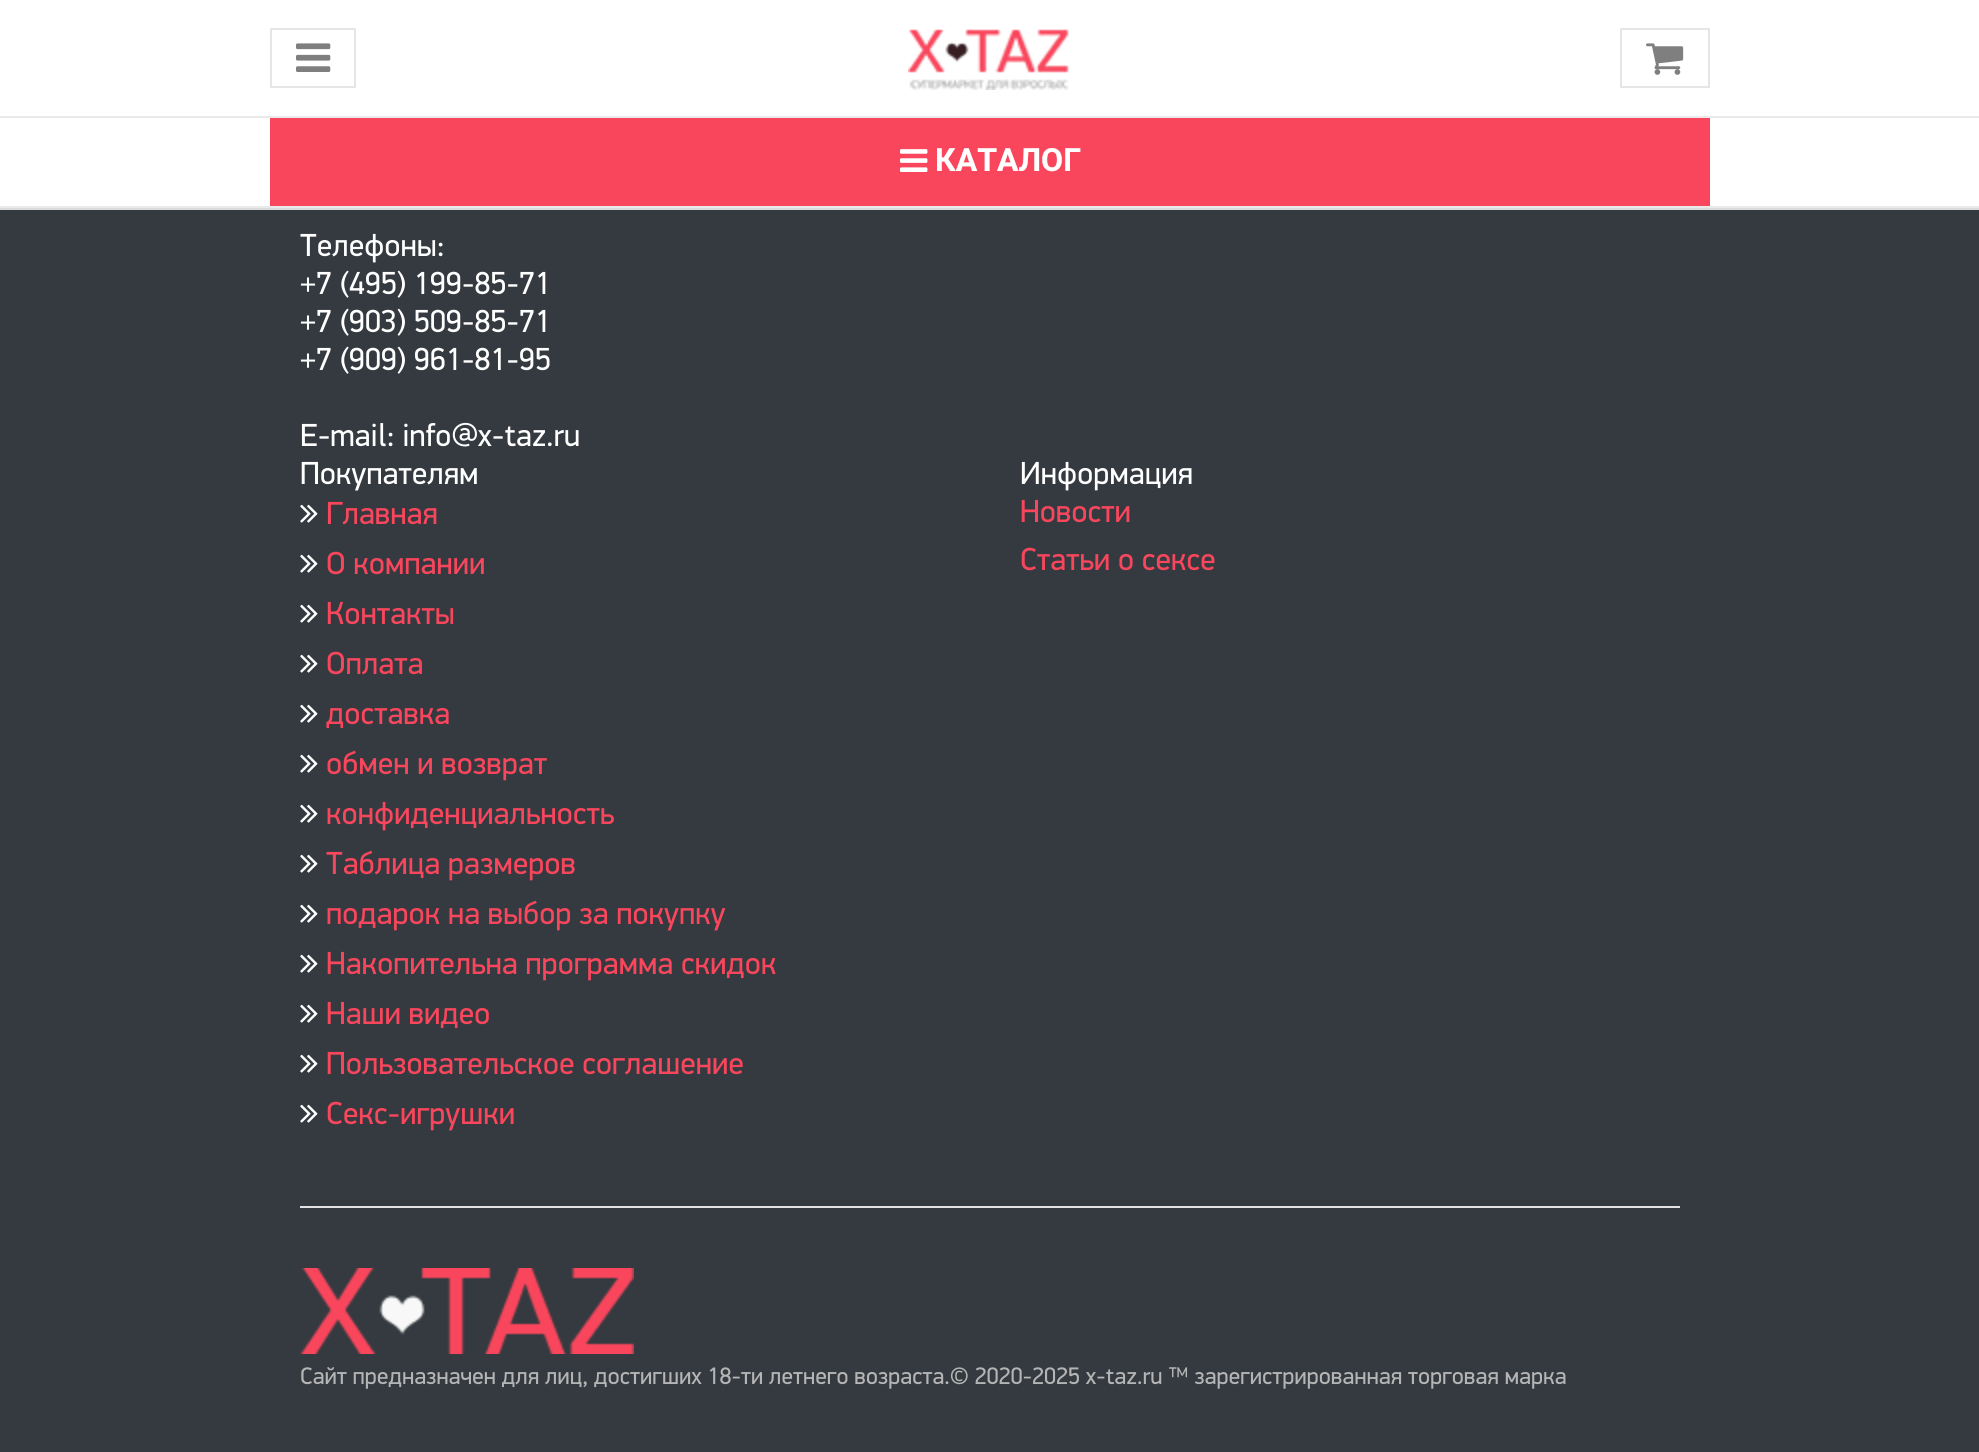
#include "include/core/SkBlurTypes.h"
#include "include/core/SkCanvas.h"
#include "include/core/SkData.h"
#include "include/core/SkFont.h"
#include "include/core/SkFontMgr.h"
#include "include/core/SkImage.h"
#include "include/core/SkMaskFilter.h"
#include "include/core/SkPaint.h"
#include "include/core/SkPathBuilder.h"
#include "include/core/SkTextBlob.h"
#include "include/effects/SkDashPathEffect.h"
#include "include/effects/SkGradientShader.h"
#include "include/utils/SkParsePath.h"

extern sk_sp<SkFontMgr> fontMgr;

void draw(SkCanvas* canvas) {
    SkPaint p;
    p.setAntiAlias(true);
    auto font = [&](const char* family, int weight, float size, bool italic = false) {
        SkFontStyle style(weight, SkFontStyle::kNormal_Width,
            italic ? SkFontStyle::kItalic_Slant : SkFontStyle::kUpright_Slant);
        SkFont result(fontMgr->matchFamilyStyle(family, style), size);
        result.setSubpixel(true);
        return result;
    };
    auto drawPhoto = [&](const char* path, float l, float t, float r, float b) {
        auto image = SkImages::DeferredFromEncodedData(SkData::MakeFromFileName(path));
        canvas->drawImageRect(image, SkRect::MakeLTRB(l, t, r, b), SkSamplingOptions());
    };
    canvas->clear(0xFF343A40);
    p.setColor(0xFFFFFFFF);
    canvas->drawRect(SkRect::MakeLTRB(0, 0, 1979, 206), p);
    p.setColor(0xFFDBDBDB);
    canvas->drawRect(SkRect::MakeLTRB(0, 208, 1979, 210), p);
    p.setStyle(SkPaint::kStroke_Style);
    p.setStrokeWidth(2);
    p.setColor(0xFFE6E6E6);
    canvas->drawRect(SkRect::MakeLTRB(271, 29, 355, 87), p);
    drawPhoto("media/1.png", 296, 43, 331, 72);
    drawPhoto("media/2.png", 908, 29, 1069, 90);
    canvas->drawRect(SkRect::MakeLTRB(1621, 29, 1709, 87), p);
    drawPhoto("media/3.png", 1646, 43, 1684, 75);
    p.setStyle(SkPaint::kFill_Style);
    {
        const struct { float l, t, r, b; SkColor color; } items[] = {
            {0, 116, 1979, 118, 0xFFEAEAEA},
            {0, 206, 1979, 208, 0xFFEAEAEA},
            {270, 118, 1710, 206, 0xFFF9465C},
        };
        for (auto [l, t, r, b, color] : items) {
            p.setColor(color);
            canvas->drawRect(SkRect::MakeLTRB(l, t, r, b), p);
        }
    }
    drawPhoto("media/4.png", 900, 149, 928, 172);
    auto font1 = font("Roboto", 700, 32);
    p.setColor(0xFFFFFFFF);
    canvas->drawString("КАТАЛОГ", 935, 171, font1, p);
    drawPhoto("media/5.png", 300, 233, 443, 263);
    drawPhoto("media/6.png", 300, 270, 546, 298);
    drawPhoto("media/7.png", 300, 308, 546, 336);
    drawPhoto("media/8.png", 300, 346, 550, 374);
    drawPhoto("media/9.png", 301, 422, 579, 447);
    drawPhoto("media/10.png", 301, 461, 477, 491);
    drawPhoto("media/11.png", 300, 504, 318, 523);
    drawPhoto("media/12.png", 327, 501, 437, 525);
    drawPhoto("media/11.png", 300, 554, 318, 573);
    drawPhoto("media/13.png", 327, 551, 484, 575);
    drawPhoto("media/11.png", 300, 604, 318, 623);
    drawPhoto("media/14.png", 327, 601, 454, 625);
    drawPhoto("media/11.png", 300, 654, 318, 673);
    drawPhoto("media/15.png", 327, 651, 422, 675);
    drawPhoto("media/11.png", 300, 704, 318, 723);
    drawPhoto("media/16.png", 326, 708, 449, 729);
    drawPhoto("media/11.png", 300, 754, 318, 773);
    drawPhoto("media/17.png", 327, 750, 547, 781);
    drawPhoto("media/11.png", 300, 804, 318, 823);
    drawPhoto("media/18.png", 327, 801, 614, 831);
    drawPhoto("media/11.png", 300, 854, 318, 873);
    drawPhoto("media/19.png", 326, 850, 575, 881);
    drawPhoto("media/11.png", 300, 904, 318, 923);
    drawPhoto("media/20.png", 327, 900, 726, 931);
    drawPhoto("media/11.png", 300, 954, 318, 973);
    drawPhoto("media/21.png", 327, 951, 776, 981);
    drawPhoto("media/11.png", 300, 1004, 318, 1023);
    drawPhoto("media/22.png", 327, 1001, 489, 1029);
    drawPhoto("media/11.png", 300, 1054, 318, 1073);
    drawPhoto("media/23.png", 327, 1051, 743, 1075);
    drawPhoto("media/11.png", 300, 1104, 318, 1123);
    drawPhoto("media/24.png", 327, 1101, 514, 1131);
    drawPhoto("media/25.png", 1021, 461, 1192, 491);
    drawPhoto("media/26.png", 1021, 499, 1130, 523);
    drawPhoto("media/27.png", 1021, 547, 1215, 571);
    p.setColor(0xFFE3E3E3);
    canvas->drawRect(SkRect::MakeLTRB(300, 1206, 1680, 1208), p);
    drawPhoto("media/28.png", 300, 1268, 634, 1354);
    drawPhoto("media/29.png", 301, 1367, 1566, 1389);
}
